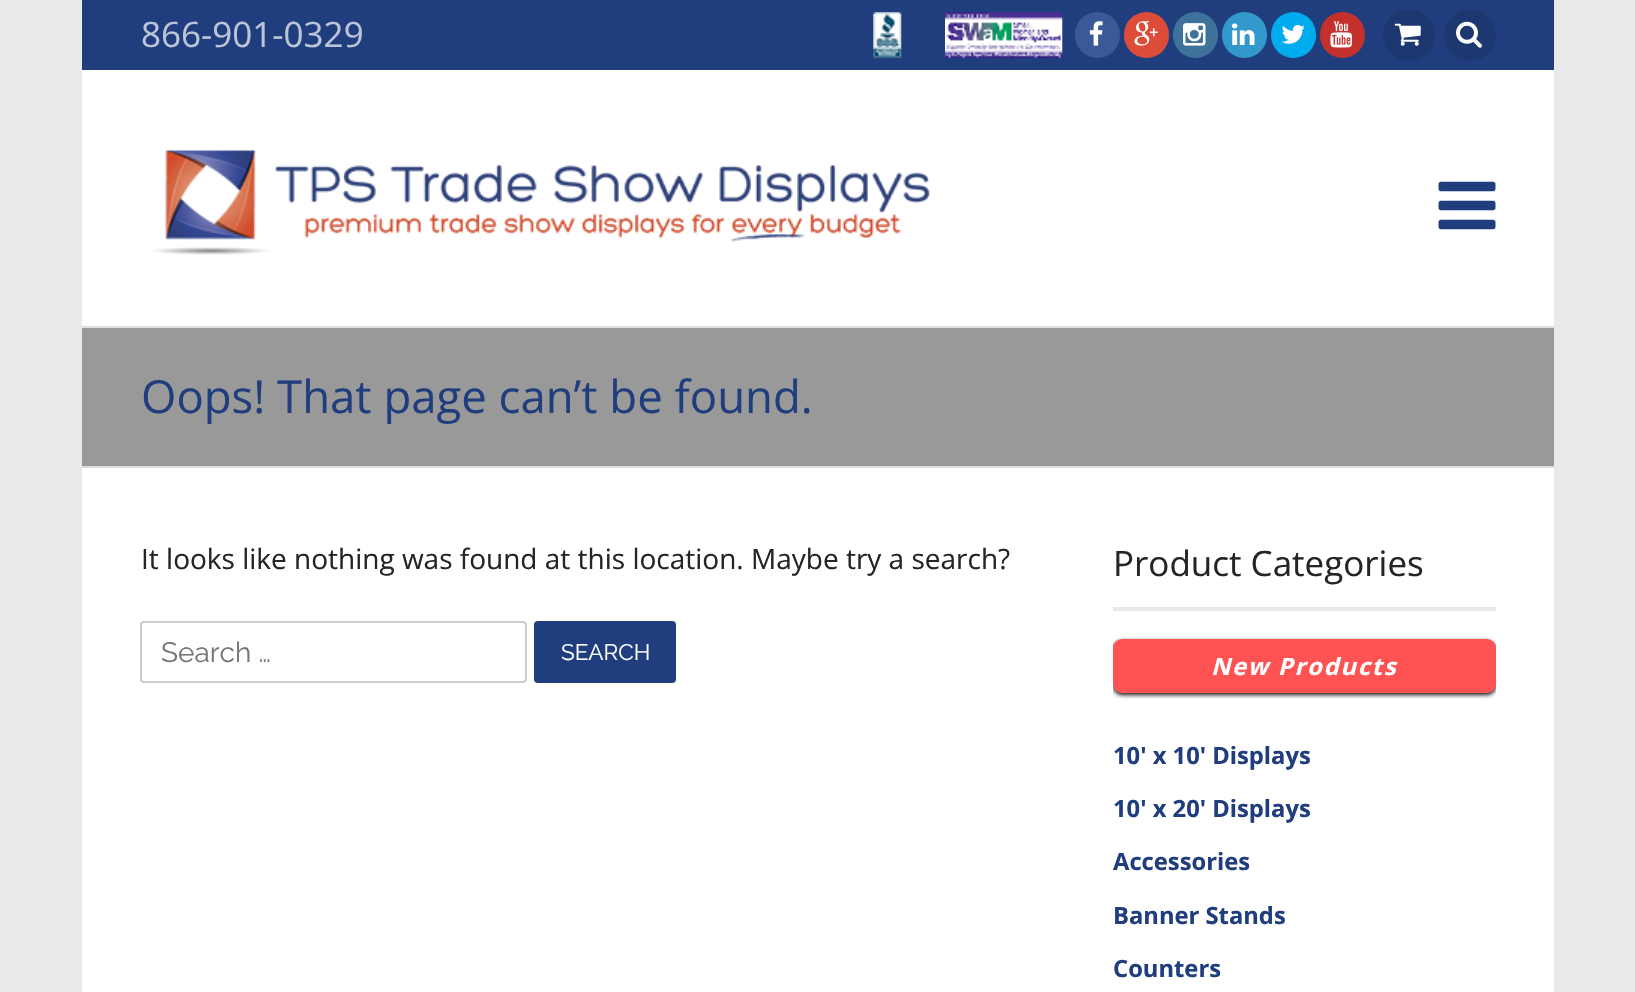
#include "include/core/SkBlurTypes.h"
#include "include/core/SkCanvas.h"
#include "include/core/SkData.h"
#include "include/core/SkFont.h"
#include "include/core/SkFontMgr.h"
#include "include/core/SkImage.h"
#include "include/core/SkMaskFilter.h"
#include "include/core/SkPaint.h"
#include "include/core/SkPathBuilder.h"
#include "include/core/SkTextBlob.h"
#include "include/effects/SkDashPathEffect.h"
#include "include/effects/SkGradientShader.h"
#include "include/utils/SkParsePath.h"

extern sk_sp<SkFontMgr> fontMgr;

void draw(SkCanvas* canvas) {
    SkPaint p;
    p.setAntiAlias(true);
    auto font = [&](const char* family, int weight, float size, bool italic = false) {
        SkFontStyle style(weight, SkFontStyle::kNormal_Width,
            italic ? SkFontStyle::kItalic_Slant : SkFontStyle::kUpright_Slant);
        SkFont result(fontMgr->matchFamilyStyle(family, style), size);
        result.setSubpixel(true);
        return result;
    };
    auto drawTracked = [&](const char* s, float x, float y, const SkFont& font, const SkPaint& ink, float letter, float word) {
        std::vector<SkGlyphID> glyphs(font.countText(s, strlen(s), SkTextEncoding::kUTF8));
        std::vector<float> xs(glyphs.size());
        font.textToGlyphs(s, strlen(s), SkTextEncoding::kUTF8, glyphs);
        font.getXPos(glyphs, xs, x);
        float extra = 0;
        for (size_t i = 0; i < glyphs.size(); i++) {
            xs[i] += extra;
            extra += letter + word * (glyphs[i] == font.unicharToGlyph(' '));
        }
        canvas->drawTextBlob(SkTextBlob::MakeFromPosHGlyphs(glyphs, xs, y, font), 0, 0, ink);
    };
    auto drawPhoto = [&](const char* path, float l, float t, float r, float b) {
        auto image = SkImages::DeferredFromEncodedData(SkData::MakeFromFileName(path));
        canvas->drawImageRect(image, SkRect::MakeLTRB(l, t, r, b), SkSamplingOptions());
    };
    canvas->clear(0xFFEAEAEA);
    p.setColor(0xFFFFFFFF);
    canvas->drawRect(SkRect::MakeLTRB(82, 70, 1554, 992), p);
    p.setColor(0xFF203E7D);
    canvas->drawRect(SkRect::MakeLTRB(82, 0, 1554, 70), p);
    auto font1 = font("Open Sans", 400, 35);
    p.setColor(0xFFBCC5D8);
    canvas->drawString("866-901-0329", 141, 47, font1, p);
    drawPhoto("media/1.png", 873, 12, 902, 58);
    drawPhoto("media/2.png", 945, 12, 1063, 58);
    p.setColor(0xFF3B5998);
    canvas->drawRoundRect(SkRect::MakeLTRB(1075, 12, 1120, 58), 22.5f, 22.5f, p);
    drawPhoto("media/3.png", 1089, 21, 1103, 46);
    p.setColor(0xFFDD4B39);
    canvas->drawRoundRect(SkRect::MakeLTRB(1124, 12, 1169, 58), 22.5f, 22.5f, p);
    drawPhoto("media/4.png", 1134, 21, 1158, 46);
    p.setColor(0xFF3F729B);
    canvas->drawRoundRect(SkRect::MakeLTRB(1173, 12, 1218, 58), 22.5f, 22.5f, p);
    drawPhoto("media/5.png", 1183, 23, 1206, 46);
    p.setColor(0xFF3399CC);
    canvas->drawRoundRect(SkRect::MakeLTRB(1222, 12, 1267, 58), 22.5f, 22.5f, p);
    drawPhoto("media/6.png", 1232, 23, 1255, 45);
    p.setColor(0xFF00ACED);
    canvas->drawRoundRect(SkRect::MakeLTRB(1271, 12, 1316, 58), 22.5f, 22.5f, p);
    drawPhoto("media/7.png", 1281, 25, 1305, 44);
    p.setColor(0xFFC4302B);
    canvas->drawRoundRect(SkRect::MakeLTRB(1320, 12, 1365, 58), 22.5f, 22.5f, p);
    drawPhoto("media/8.png", 1330, 21, 1353, 48);
    p.setColor(0xFF1D3871);
    canvas->drawCircle(1409, 35, 26, p);
    drawPhoto("media/9.png", 1394, 23, 1421, 46);
    canvas->drawCircle(1470, 35, 26, p);
    drawPhoto("media/10.png", 1456, 21, 1482, 48);
    drawPhoto("media/11.png", 151, 150, 930, 255);
    drawPhoto("media/12.png", 1438, 181, 1496, 230);
    {
        const struct { float l, t, r, b; SkColor color; } items[] = {
            {82, 328, 1554, 466, 0xFF999999},
            {82, 326, 1554, 328, 0xFFDEDEDE},
            {82, 466, 1554, 468, 0xFFDEDEDE},
        };
        for (auto [l, t, r, b, color] : items) {
            p.setColor(color);
            canvas->drawRect(SkRect::MakeLTRB(l, t, r, b), p);
        }
    }
    auto font2 = font("Open Sans", 400, 45.5f);
    p.setColor(0xFF203E7D);
    canvas->drawString("Oops! That page can’t be found.", 141, 413, font2, p);
    auto font3 = font("Open Sans", 400, 28);
    p.setColor(0xFF232527);
    canvas->drawString("It looks like nothing was found at this location. Maybe try a search?", 141, 569, font3, p);
    p.setStyle(SkPaint::kStroke_Style);
    p.setStrokeWidth(2);
    p.setColor(0xFFCCCCCC);
    canvas->drawRoundRect(SkRect::MakeLTRB(141, 622, 526, 682), 3, 3, p);
    auto font4 = font("Raleway", 400, 28);
    p.setStyle(SkPaint::kFill_Style);
    p.setColor(0xFF757575);
    canvas->drawString("Search …", 161, 662, font4, p);
    p.setColor(0xFF203E7D);
    canvas->drawRoundRect(SkRect::MakeLTRB(534, 621, 676, 683), 4, 4, p);
    auto font5 = font("Raleway", 400, 22.5f);
    p.setColor(0xFFFFFFFF);
    canvas->drawString("SEARCH", 561, 660, font5, p);
    p.setColor(0xFF232527);
    canvas->drawString("Product Categories", 1113, 576, font1, p);
    p.setColor(0xFFE9E9E9);
    canvas->drawRect(SkRect::MakeLTRB(1113, 607, 1496, 611), p);
    canvas->save();
    canvas->clipRect(SkRect::MakeLTRB(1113, 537, 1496, 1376));
    p.setColor(0xFF151515);
    p.setMaskFilter(SkMaskFilter::MakeBlur(kNormal_SkBlurStyle, 2));
    canvas->drawRoundRect(SkRect::MakeLTRB(1113, 641, 1496, 695), 9, 9, p);
    p.setMaskFilter(nullptr);
    canvas->restore();
    p.setColor(0xFFFF5252);
    canvas->drawRoundRect(SkRect::MakeLTRB(1113, 639, 1496, 693), 9, 9, p);
    auto font6 = font("Open Sans", 700, 23.75f, true);
    p.setColor(0xFFFFFFFF);
    drawTracked("New Products", 1211, 675, font6, p, 1.75f, 0);
    auto font7 = font("Open Sans", 700, 23.75f);
    p.setColor(0xFF203E7D);
    {
        const struct { const char* s; float x, y; } items[] = {
            {"10' x 10' Displays", 1113, 764},
            {"10' x 20' Displays", 1113, 817},
            {"Accessories", 1113, 870},
            {"Banner Stands", 1113, 924},
            {"Counters", 1113, 977},
        };
        for (auto [s, x, y] : items) {
            canvas->drawString(s, x, y, font7, p);
        }
    }
}
